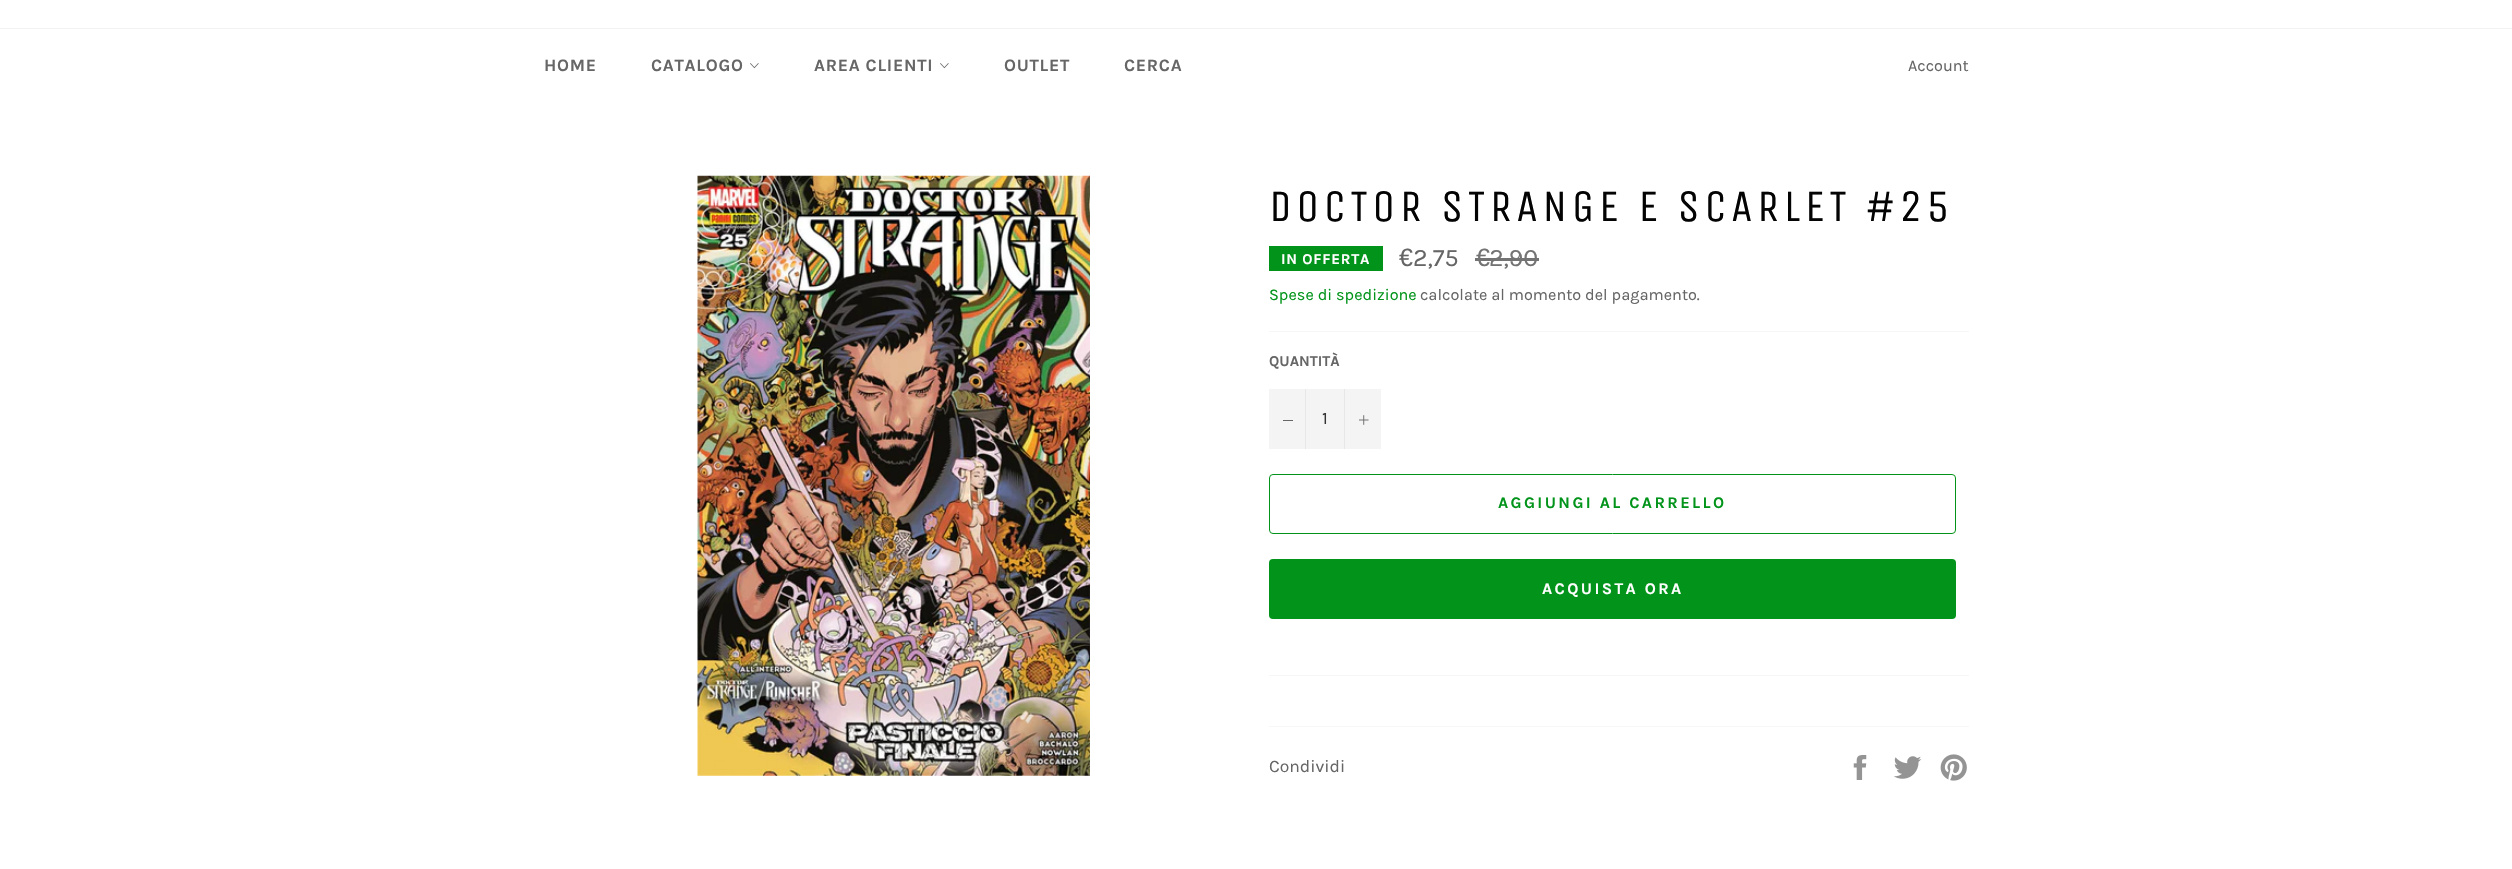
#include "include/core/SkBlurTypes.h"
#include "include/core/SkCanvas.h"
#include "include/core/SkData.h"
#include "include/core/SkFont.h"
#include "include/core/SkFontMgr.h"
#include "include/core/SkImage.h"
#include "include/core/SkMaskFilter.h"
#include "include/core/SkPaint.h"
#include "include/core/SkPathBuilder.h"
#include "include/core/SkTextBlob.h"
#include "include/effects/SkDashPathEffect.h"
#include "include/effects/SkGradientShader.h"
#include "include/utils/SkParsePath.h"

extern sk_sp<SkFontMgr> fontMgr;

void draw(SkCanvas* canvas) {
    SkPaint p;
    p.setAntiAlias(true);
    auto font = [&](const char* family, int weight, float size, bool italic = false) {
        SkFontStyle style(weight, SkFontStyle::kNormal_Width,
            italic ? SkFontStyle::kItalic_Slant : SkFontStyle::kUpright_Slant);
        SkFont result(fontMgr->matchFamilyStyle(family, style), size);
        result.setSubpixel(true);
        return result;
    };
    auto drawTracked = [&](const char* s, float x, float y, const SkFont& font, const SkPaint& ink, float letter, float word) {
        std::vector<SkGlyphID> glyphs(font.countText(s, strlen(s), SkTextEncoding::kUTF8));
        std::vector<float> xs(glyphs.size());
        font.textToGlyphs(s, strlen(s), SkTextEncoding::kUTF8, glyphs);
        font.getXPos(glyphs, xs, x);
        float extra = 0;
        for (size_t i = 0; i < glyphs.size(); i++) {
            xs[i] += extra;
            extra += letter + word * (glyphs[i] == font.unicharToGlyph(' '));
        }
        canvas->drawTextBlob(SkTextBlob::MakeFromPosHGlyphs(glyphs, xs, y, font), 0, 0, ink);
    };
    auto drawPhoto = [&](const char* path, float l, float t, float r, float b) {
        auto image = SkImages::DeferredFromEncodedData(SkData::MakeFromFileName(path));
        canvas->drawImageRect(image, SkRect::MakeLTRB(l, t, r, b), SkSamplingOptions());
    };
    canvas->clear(0xFFFFFFFF);
    p.setColor(0xFFF2F2F2);
    canvas->drawRect(SkRect::MakeLTRB(0, 28, 2512, 29), p);
    auto font1 = font("Karla", 700, 17.5f);
    p.setColor(0xFF666666);
    drawTracked("HOME", 544, 71, font1, p, 0.75f, 0);
    drawTracked("CATALOGO", 651, 71, font1, p, 0.75f, 0);
    drawPhoto("media/1.png", 750, 63, 759, 69);
    drawTracked("AREA CLIENTI", 814, 71, font1, p, 0.75f, 0);
    drawPhoto("media/1.png", 940, 63, 949, 69);
    drawTracked("OUTLET", 1004, 71, font1, p, 0.75f, 0);
    drawTracked("CERCA", 1124, 71, font1, p, 0.75f, 0);
    auto font2 = font("Karla", 400, 16.25f);
    canvas->drawString("Account", 1908, 71, font2, p);
    drawPhoto("media/2.png", 697, 175, 1090, 776);
    auto font3 = font("Unica One", 400, 45);
    p.setColor(0xFF030303);
    drawTracked("DOCTOR STRANGE E SCARLET #25", 1269, 221, font3, p, 4.5f, 0);
    p.setColor(0xFF02941A);
    canvas->drawRect(SkRect::MakeLTRB(1269, 246, 1383, 271), p);
    auto font4 = font("Karla", 700, 15);
    p.setColor(0xFFFFFFFF);
    drawTracked("IN OFFERTA", 1281, 264, font4, p, 0.75f, 0);
    auto font5 = font("Liberation Sans", 400, 25);
    p.setColor(0xFF666666);
    canvas->drawString("€", 1399, 266, font5, p);
    auto font6 = font("Karla", 400, 25);
    canvas->drawString("2,75", 1413, 266, font6, p);
    p.setColor(0xFF737373);
    canvas->drawString("€", 1476, 266, font5, p);
    canvas->drawString("2,90", 1489, 266, font6, p);
    canvas->drawRect(SkRect::MakeLTRB(1475, 258, 1539, 261), p);
    p.setColor(0xFF02941A);
    canvas->drawString("Spese di spedizione", 1269, 300, font2, p);
    p.setColor(0xFF666666);
    canvas->drawString("calcolate al momento del pagamento.", 1420, 300, font2, p);
    p.setColor(0xFFF7F7F7);
    canvas->drawRect(SkRect::MakeLTRB(1269, 331, 1969, 332), p);
    p.setColor(0xFF666666);
    canvas->drawString("QUANTITÀ", 1269, 366, font4, p);
    {
        const struct { float l, t, r, b; SkColor color; } items[] = {
            {1269, 389, 1381, 449, 0xFFF4F4F4},
            {1305, 389, 1306, 449, 0xFFE7E7E7},
            {1283, 420, 1293, 421, 0xFF666666},
        };
        for (auto [l, t, r, b, color] : items) {
            p.setColor(color);
            canvas->drawRect(SkRect::MakeLTRB(l, t, r, b), p);
        }
    }
    auto font7 = font("Karla", 400, 17.5f);
    p.setColor(0xFF333333);
    canvas->drawString("1", 1322, 424, font7, p);
    p.setColor(0xFFE7E7E7);
    canvas->drawRect(SkRect::MakeLTRB(1344, 389, 1345, 449), p);
    drawPhoto("media/3.png", 1359, 415, 1369, 425);
    p.setStyle(SkPaint::kStroke_Style);
    p.setStrokeWidth(1);
    p.setColor(0xFF02941A);
    canvas->drawRoundRect(SkRect::MakeLTRB(1269.5f, 474.5f, 1955.5f, 533.5f), 3.5f, 3.5f, p);
    auto font8 = font("Karla", 700, 16.25f);
    p.setStyle(SkPaint::kFill_Style);
    drawTracked("AGGIUNGI AL CARRELLO", 1498, 508, font8, p, 2.4f, 0);
    canvas->drawRoundRect(SkRect::MakeLTRB(1269, 559, 1956, 619), 4, 4, p);
    p.setColor(0xFFFFFFFF);
    drawTracked("ACQUISTA ORA", 1542, 594, font8, p, 2.4f, 0);
    p.setColor(0xFFF7F7F7);
    canvas->drawRect(SkRect::MakeLTRB(1269, 675, 1969, 676), p);
    canvas->drawRect(SkRect::MakeLTRB(1269, 726, 1969, 727), p);
    p.setColor(0xFF666666);
    canvas->drawString("Condividi", 1269, 772, font7, p);
    drawPhoto("media/4.png", 1853, 755, 1867, 780);
    drawPhoto("media/5.png", 1894, 756, 1922, 779);
    drawPhoto("media/6.png", 1940, 754, 1967, 781);
}
